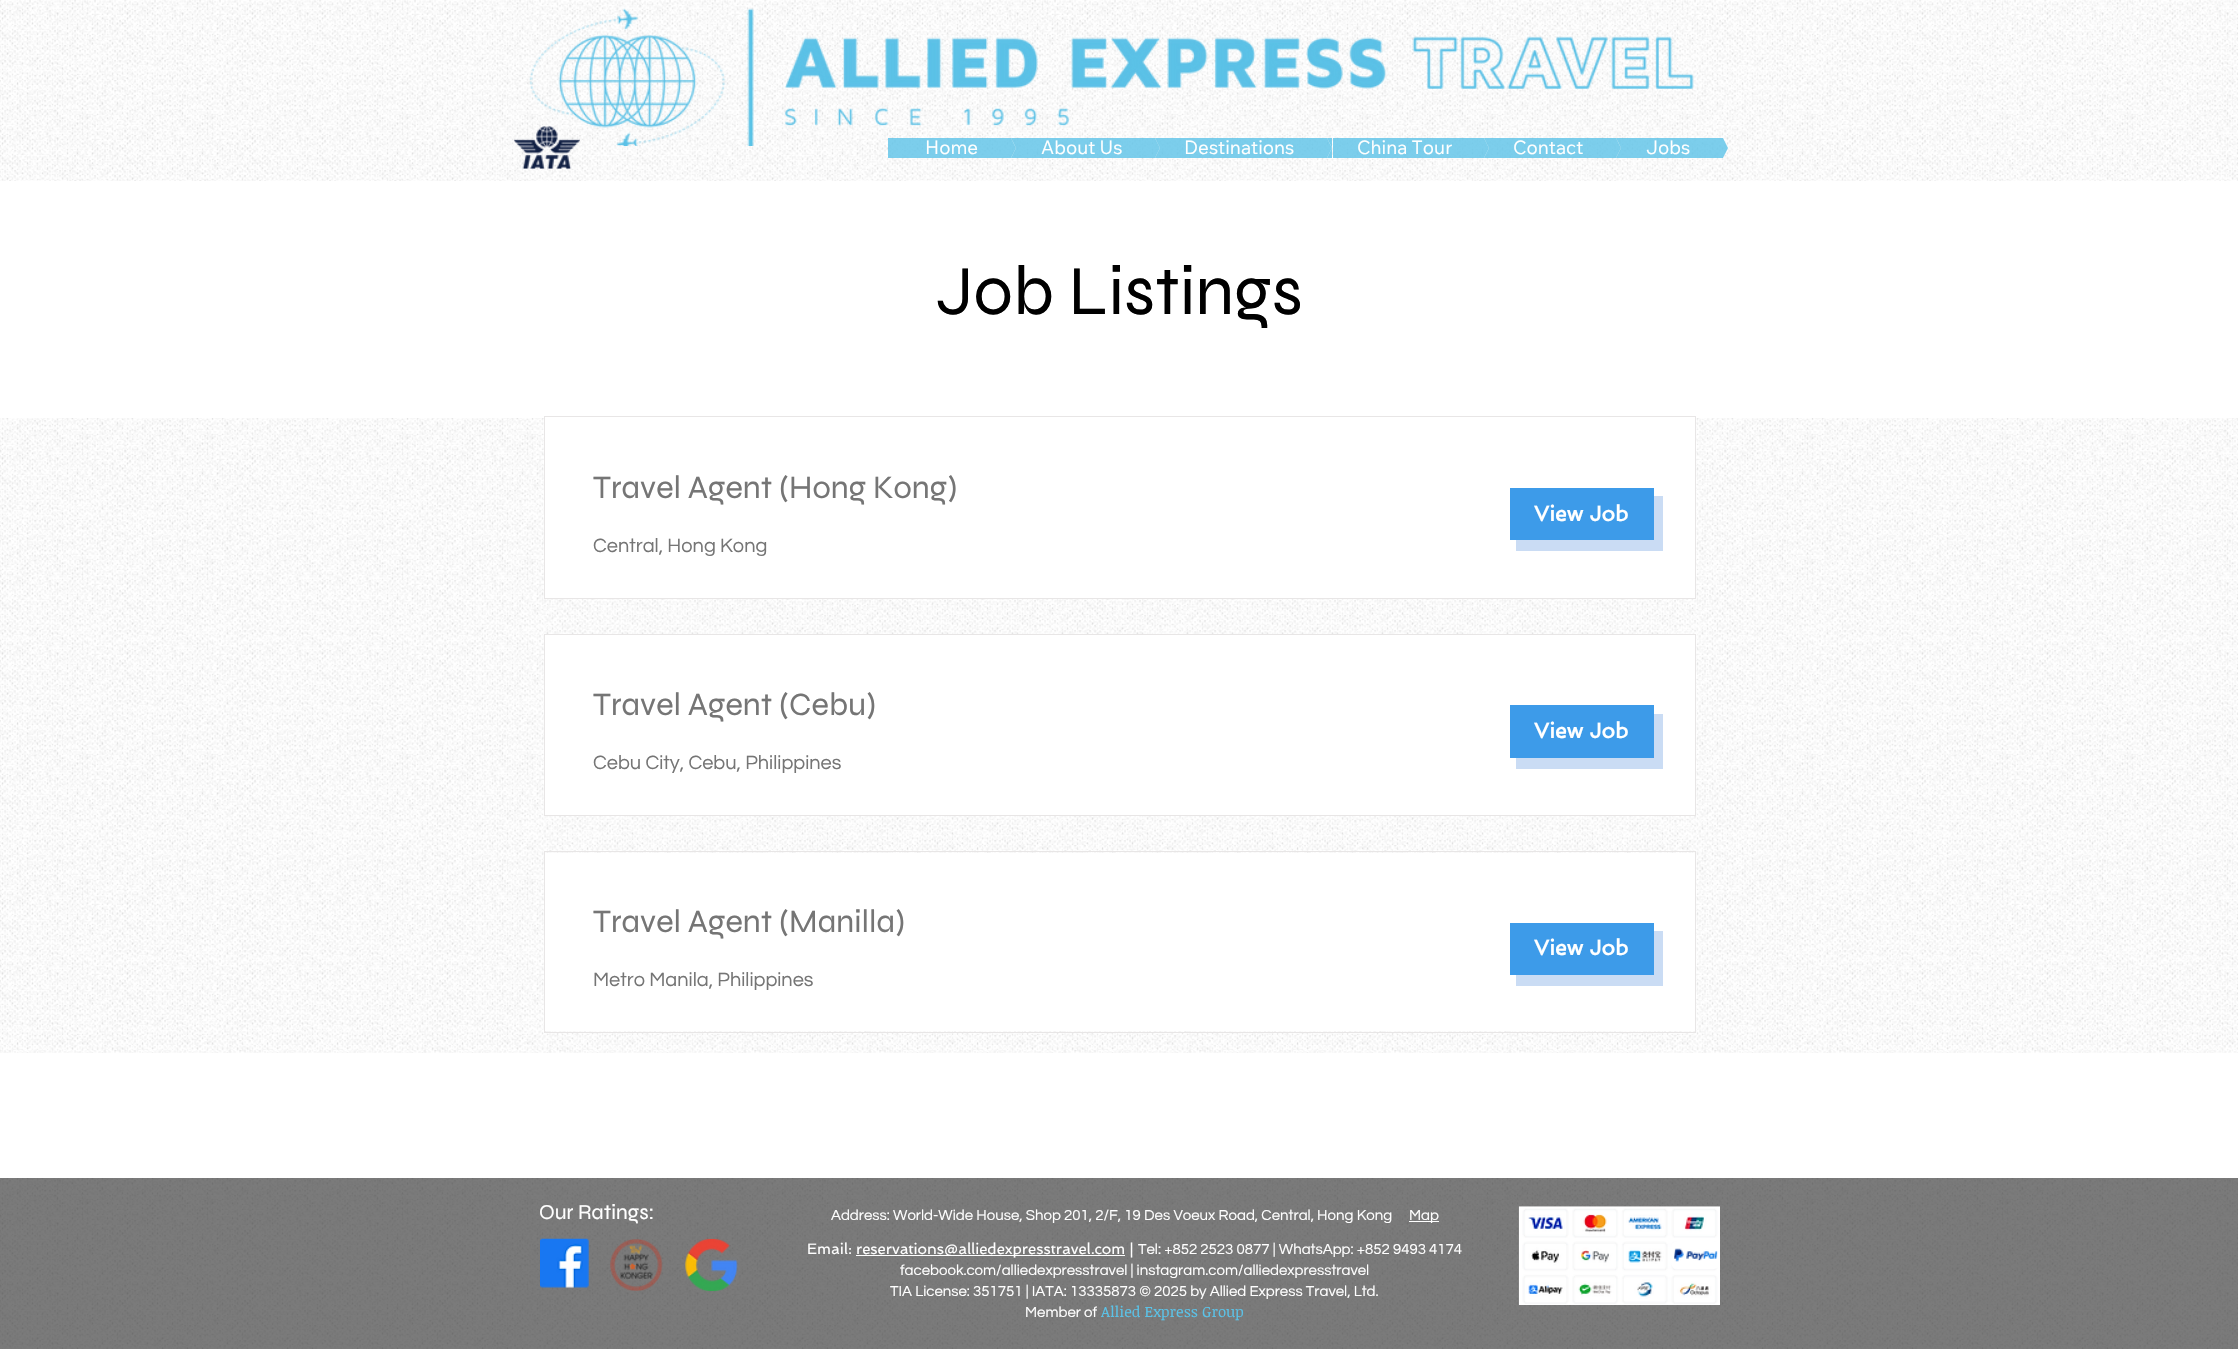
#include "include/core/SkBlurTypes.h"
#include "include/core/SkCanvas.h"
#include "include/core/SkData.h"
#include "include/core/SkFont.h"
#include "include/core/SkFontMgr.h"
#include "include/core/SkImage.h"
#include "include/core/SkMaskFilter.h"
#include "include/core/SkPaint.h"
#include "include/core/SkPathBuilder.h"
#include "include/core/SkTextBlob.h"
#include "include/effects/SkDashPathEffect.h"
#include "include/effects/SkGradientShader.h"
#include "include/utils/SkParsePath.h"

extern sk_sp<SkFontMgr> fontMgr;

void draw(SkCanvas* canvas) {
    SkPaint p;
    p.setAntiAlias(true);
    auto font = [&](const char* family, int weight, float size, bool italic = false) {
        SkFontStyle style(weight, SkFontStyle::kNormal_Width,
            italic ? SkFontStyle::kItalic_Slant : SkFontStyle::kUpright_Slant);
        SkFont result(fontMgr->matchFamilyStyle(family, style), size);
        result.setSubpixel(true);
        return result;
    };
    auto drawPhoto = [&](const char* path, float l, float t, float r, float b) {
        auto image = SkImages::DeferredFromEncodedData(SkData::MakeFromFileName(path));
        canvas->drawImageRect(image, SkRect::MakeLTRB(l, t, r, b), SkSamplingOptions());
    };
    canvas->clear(0xFFFFFFFF);
    drawPhoto("media/1.png", 0, 0, 2238, 1349);
    drawPhoto("media/2.png", 529, 8, 1694, 146);
    drawPhoto("media/3.png", 513, 126, 580, 169);
    p.setColor(0xCC5BC2E7);
    canvas->drawRect(SkRect::MakeLTRB(888, 138, 929, 158), p);
    canvas->save();
    canvas->clipRect(SkRect::MakeLTRB(929, 138, 1016, 158));
    canvas->drawPath(SkPathBuilder().moveTo(1016, 148).lineTo(929, 148).lineTo(929, -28).close().detach(), p);
    canvas->drawPath(SkPathBuilder().moveTo(929, 148).lineTo(1016, 148).lineTo(929, 322).close().detach(), p);
    canvas->restore();
    auto font1 = font("Wix Madefor Text", 400, 18.75f);
    p.setColor(0xFFFFFFFF);
    canvas->drawString("Home", 925, 154, font1, p);
    canvas->save();
    canvas->clipRect(SkRect::MakeLTRB(929, 138, 1016, 158));
    p.setColor(0xCC5BC2E7);
    canvas->drawPath(SkPathBuilder().moveTo(929, -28).lineTo(1016, -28).lineTo(1016, 148).close().moveTo(1016, 322).lineTo(929, 322).lineTo(1016, 148).close().detach(), p);
    canvas->restore();
    canvas->drawRect(SkRect::MakeLTRB(1016, 138, 1073, 158), p);
    canvas->save();
    canvas->clipRect(SkRect::MakeLTRB(1073, 138, 1160, 158));
    canvas->drawPath(SkPathBuilder().moveTo(1160, 148).lineTo(1072, 148).lineTo(1072, -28).close().detach(), p);
    canvas->drawPath(SkPathBuilder().moveTo(1072, 148).lineTo(1160, 148).lineTo(1072, 322).close().detach(), p);
    canvas->restore();
    p.setColor(0xFFFFFFFF);
    canvas->drawString("About Us", 1041, 154, font1, p);
    canvas->save();
    canvas->clipRect(SkRect::MakeLTRB(1073, 138, 1160, 158));
    p.setColor(0xCC5BC2E7);
    canvas->drawPath(SkPathBuilder().moveTo(1072, -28).lineTo(1160, -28).lineTo(1160, 148).close().moveTo(1160, 322).lineTo(1072, 322).lineTo(1160, 148).close().detach(), p);
    canvas->restore();
    canvas->drawRect(SkRect::MakeLTRB(1160, 138, 1245, 158), p);
    canvas->save();
    canvas->clipRect(SkRect::MakeLTRB(1245, 138, 1333, 158));
    canvas->drawPath(SkPathBuilder().moveTo(1332, 148).lineTo(1245, 148).lineTo(1245, -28).close().detach(), p);
    canvas->drawPath(SkPathBuilder().moveTo(1245, 148).lineTo(1332, 148).lineTo(1245, 322).close().detach(), p);
    canvas->restore();
    p.setColor(0xFFFFFFFF);
    canvas->drawString("Destinations", 1184, 154, font1, p);
    canvas->save();
    canvas->clipRect(SkRect::MakeLTRB(1245, 138, 1333, 158));
    p.setColor(0xCC5BC2E7);
    canvas->drawPath(SkPathBuilder().moveTo(1245, -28).lineTo(1332, -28).lineTo(1332, 148).close().moveTo(1332, 322).lineTo(1245, 322).lineTo(1332, 148).close().detach(), p);
    canvas->restore();
    canvas->drawRect(SkRect::MakeLTRB(1333, 138, 1401, 158), p);
    canvas->save();
    canvas->clipRect(SkRect::MakeLTRB(1401, 138, 1489, 158));
    canvas->drawPath(SkPathBuilder().moveTo(1489, 148).lineTo(1401, 148).lineTo(1401, -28).close().detach(), p);
    canvas->drawPath(SkPathBuilder().moveTo(1401, 148).lineTo(1489, 148).lineTo(1401, 322).close().detach(), p);
    canvas->restore();
    p.setColor(0xFFFFFFFF);
    canvas->drawString("China Tour", 1357, 154, font1, p);
    canvas->save();
    canvas->clipRect(SkRect::MakeLTRB(1401, 138, 1489, 158));
    p.setColor(0xCC5BC2E7);
    canvas->drawPath(SkPathBuilder().moveTo(1401, -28).lineTo(1489, -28).lineTo(1489, 148).close().moveTo(1489, 322).lineTo(1401, 322).lineTo(1489, 148).close().detach(), p);
    canvas->restore();
    canvas->drawRect(SkRect::MakeLTRB(1489, 138, 1534, 158), p);
    canvas->save();
    canvas->clipRect(SkRect::MakeLTRB(1534, 138, 1621, 158));
    canvas->drawPath(SkPathBuilder().moveTo(1621, 148).lineTo(1534, 148).lineTo(1534, -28).close().detach(), p);
    canvas->drawPath(SkPathBuilder().moveTo(1534, 148).lineTo(1621, 148).lineTo(1534, 322).close().detach(), p);
    canvas->restore();
    p.setColor(0xFFFFFFFF);
    canvas->drawString("Contact", 1513, 154, font1, p);
    canvas->save();
    canvas->clipRect(SkRect::MakeLTRB(1534, 138, 1621, 158));
    p.setColor(0xCC5BC2E7);
    canvas->drawPath(SkPathBuilder().moveTo(1534, -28).lineTo(1621, -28).lineTo(1621, 148).close().moveTo(1621, 322).lineTo(1534, 322).lineTo(1621, 148).close().detach(), p);
    canvas->restore();
    canvas->drawRect(SkRect::MakeLTRB(1621, 138, 1640, 158), p);
    canvas->save();
    canvas->clipRect(SkRect::MakeLTRB(1640, 138, 1728, 158));
    canvas->drawPath(SkPathBuilder().moveTo(1728, 148).lineTo(1640, 148).lineTo(1640, -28).close().detach(), p);
    canvas->drawPath(SkPathBuilder().moveTo(1640, 148).lineTo(1728, 148).lineTo(1640, 322).close().detach(), p);
    canvas->restore();
    p.setColor(0xFFFFFFFF);
    canvas->drawString("Jobs", 1646, 154, font1, p);
    canvas->drawRect(SkRect::MakeLTRB(0, 181, 2238, 418), p);
    auto font2 = font("Syne", 400, 70);
    p.setColor(0xFF000000);
    canvas->drawString("Job Listings", 936, 314, font2, p);
    p.setStyle(SkPaint::kStroke_Style);
    p.setStrokeWidth(1);
    p.setColor(0xFFE8E6E6);
    canvas->drawRect(SkRect::MakeLTRB(544.5f, 416.5f, 1695.5f, 598.5f), p);
    p.setStyle(SkPaint::kFill_Style);
    p.setColor(0xFFFFFFFF);
    canvas->drawRect(SkRect::MakeLTRB(545, 418, 1695, 598), p);
    auto font3 = font("Syne", 400, 32.5f);
    p.setColor(0xFF757575);
    canvas->drawString("Travel Agent (Hong Kong)", 593, 498, font3, p);
    p.setColor(0xFFCADCF4);
    canvas->drawPath(SkPathBuilder().moveTo(1516, 540).lineTo(1516, 551).lineTo(1663, 551).lineTo(1663, 496).lineTo(1654, 496).lineTo(1654, 540).close().detach(), p);
    p.setColor(0xFF3D9BE9);
    canvas->drawRect(SkRect::MakeLTRB(1510, 488, 1654, 540), p);
    auto font4 = font("Spinnaker", 700, 21.25f);
    p.setColor(0xFFFFFFFF);
    canvas->drawString("View Job", 1534, 521, font4, p);
    auto font5 = font("Questrial", 400, 20);
    p.setColor(0xFF757575);
    canvas->drawString("Central, Hong Kong", 593, 552, font5, p);
    p.setStyle(SkPaint::kStroke_Style);
    p.setColor(0xFFE8E6E6);
    canvas->drawRect(SkRect::MakeLTRB(544.5f, 634.5f, 1695.5f, 815.5f), p);
    p.setStyle(SkPaint::kFill_Style);
    p.setColor(0xFFFFFFFF);
    canvas->drawRect(SkRect::MakeLTRB(545, 635, 1695, 815), p);
    p.setColor(0xFF757575);
    canvas->drawString("Travel Agent (Cebu)", 593, 715, font3, p);
    p.setColor(0xFFCADCF4);
    canvas->drawPath(SkPathBuilder().moveTo(1516, 758).lineTo(1516, 769).lineTo(1663, 769).lineTo(1663, 714).lineTo(1654, 714).lineTo(1654, 758).close().detach(), p);
    p.setColor(0xFF3D9BE9);
    canvas->drawRect(SkRect::MakeLTRB(1510, 705, 1654, 758), p);
    p.setColor(0xFFFFFFFF);
    canvas->drawString("View Job", 1534, 738, font4, p);
    p.setColor(0xFF757575);
    canvas->drawString("Cebu City, Cebu, Philippines", 593, 769, font5, p);
    p.setStyle(SkPaint::kStroke_Style);
    p.setColor(0xFFE8E6E6);
    canvas->drawRect(SkRect::MakeLTRB(544.5f, 851.5f, 1695.5f, 1032.5f), p);
    p.setStyle(SkPaint::kFill_Style);
    p.setColor(0xFFFFFFFF);
    canvas->drawRect(SkRect::MakeLTRB(545, 853, 1695, 1031), p);
    p.setColor(0xFF757575);
    canvas->drawString("Travel Agent (Manilla)", 593, 932, font3, p);
    p.setColor(0xFFCADCF4);
    canvas->drawPath(SkPathBuilder().moveTo(1516, 975).lineTo(1516, 986).lineTo(1663, 986).lineTo(1663, 931).lineTo(1654, 931).lineTo(1654, 975).close().detach(), p);
    p.setColor(0xFF3D9BE9);
    canvas->drawRect(SkRect::MakeLTRB(1510, 923, 1654, 975), p);
    p.setColor(0xFFFFFFFF);
    canvas->drawString("View Job", 1534, 955, font4, p);
    p.setColor(0xFF757575);
    canvas->drawString("Metro Manila, Philippines", 593, 986, font5, p);
    p.setColor(0xFFFFFFFF);
    canvas->drawRect(SkRect::MakeLTRB(0, 1053, 2238, 1178), p);
    p.setColor(0x99232323);
    canvas->drawRect(SkRect::MakeLTRB(0, 1178, 2238, 1349), p);
    auto font6 = font("Syne", 400, 21.25f);
    p.setColor(0xFFFFFFFF);
    canvas->drawString("Our Ratings:", 539, 1219, font6, p);
    auto font7 = font("Questrial", 400, 15);
    canvas->drawString("Address: World-Wide House, Shop 201, 2/F, 19 Des Voeux Road, Central, Hong Kong", 831, 1220, font7, p);
    canvas->drawRect(SkRect::MakeLTRB(1409, 1221, 1439, 1222), p);
    canvas->drawString("Map", 1409, 1220, font7, p);
    drawPhoto("media/4.png", 1518, 1206, 1720, 1305);
    canvas->drawRoundRect(SkRect::MakeLTRB(1671, 1241, 1720, 1269), 6, 6, p);
    drawPhoto("media/5.png", 1674, 1248, 1718, 1262);
    drawPhoto("media/6.png", 540, 1238, 589, 1288);
    drawPhoto("media/7.png", 610, 1239, 663, 1291);
    drawPhoto("media/8.png", 685, 1238, 738, 1292);
    auto font8 = font("Spinnaker", 400, 15);
    canvas->drawString("Email:", 807, 1254, font8, p);
    canvas->drawRect(SkRect::MakeLTRB(856, 1255, 1125, 1256), p);
    canvas->drawString("reservations@alliedexpresstravel.com |", 856, 1254, font8, p);
    {
        const struct { const char* s; float x, y; } items[] = {
            {"Tel: +852 2523 0877 | WhatsApp: +852 9493 4174", 1138, 1254},
            {"facebook.com/alliedexpresstravel | instagram.com/alliedexpresstravel", 900, 1275},
            {"TIA License: 351751 | IATA: 13335873 © 2025 by Allied Express Travel, Ltd.", 890, 1296},
            {"Member of", 1025, 1317},
        };
        for (auto [s, x, y] : items) {
            canvas->drawString(s, x, y, font7, p);
        }
    }
    auto font9 = font("Noticia Text", 400, 15);
    p.setColor(0xFF5BC2E7);
    canvas->drawString("Allied Express Group", 1101, 1317, font9, p);
}
